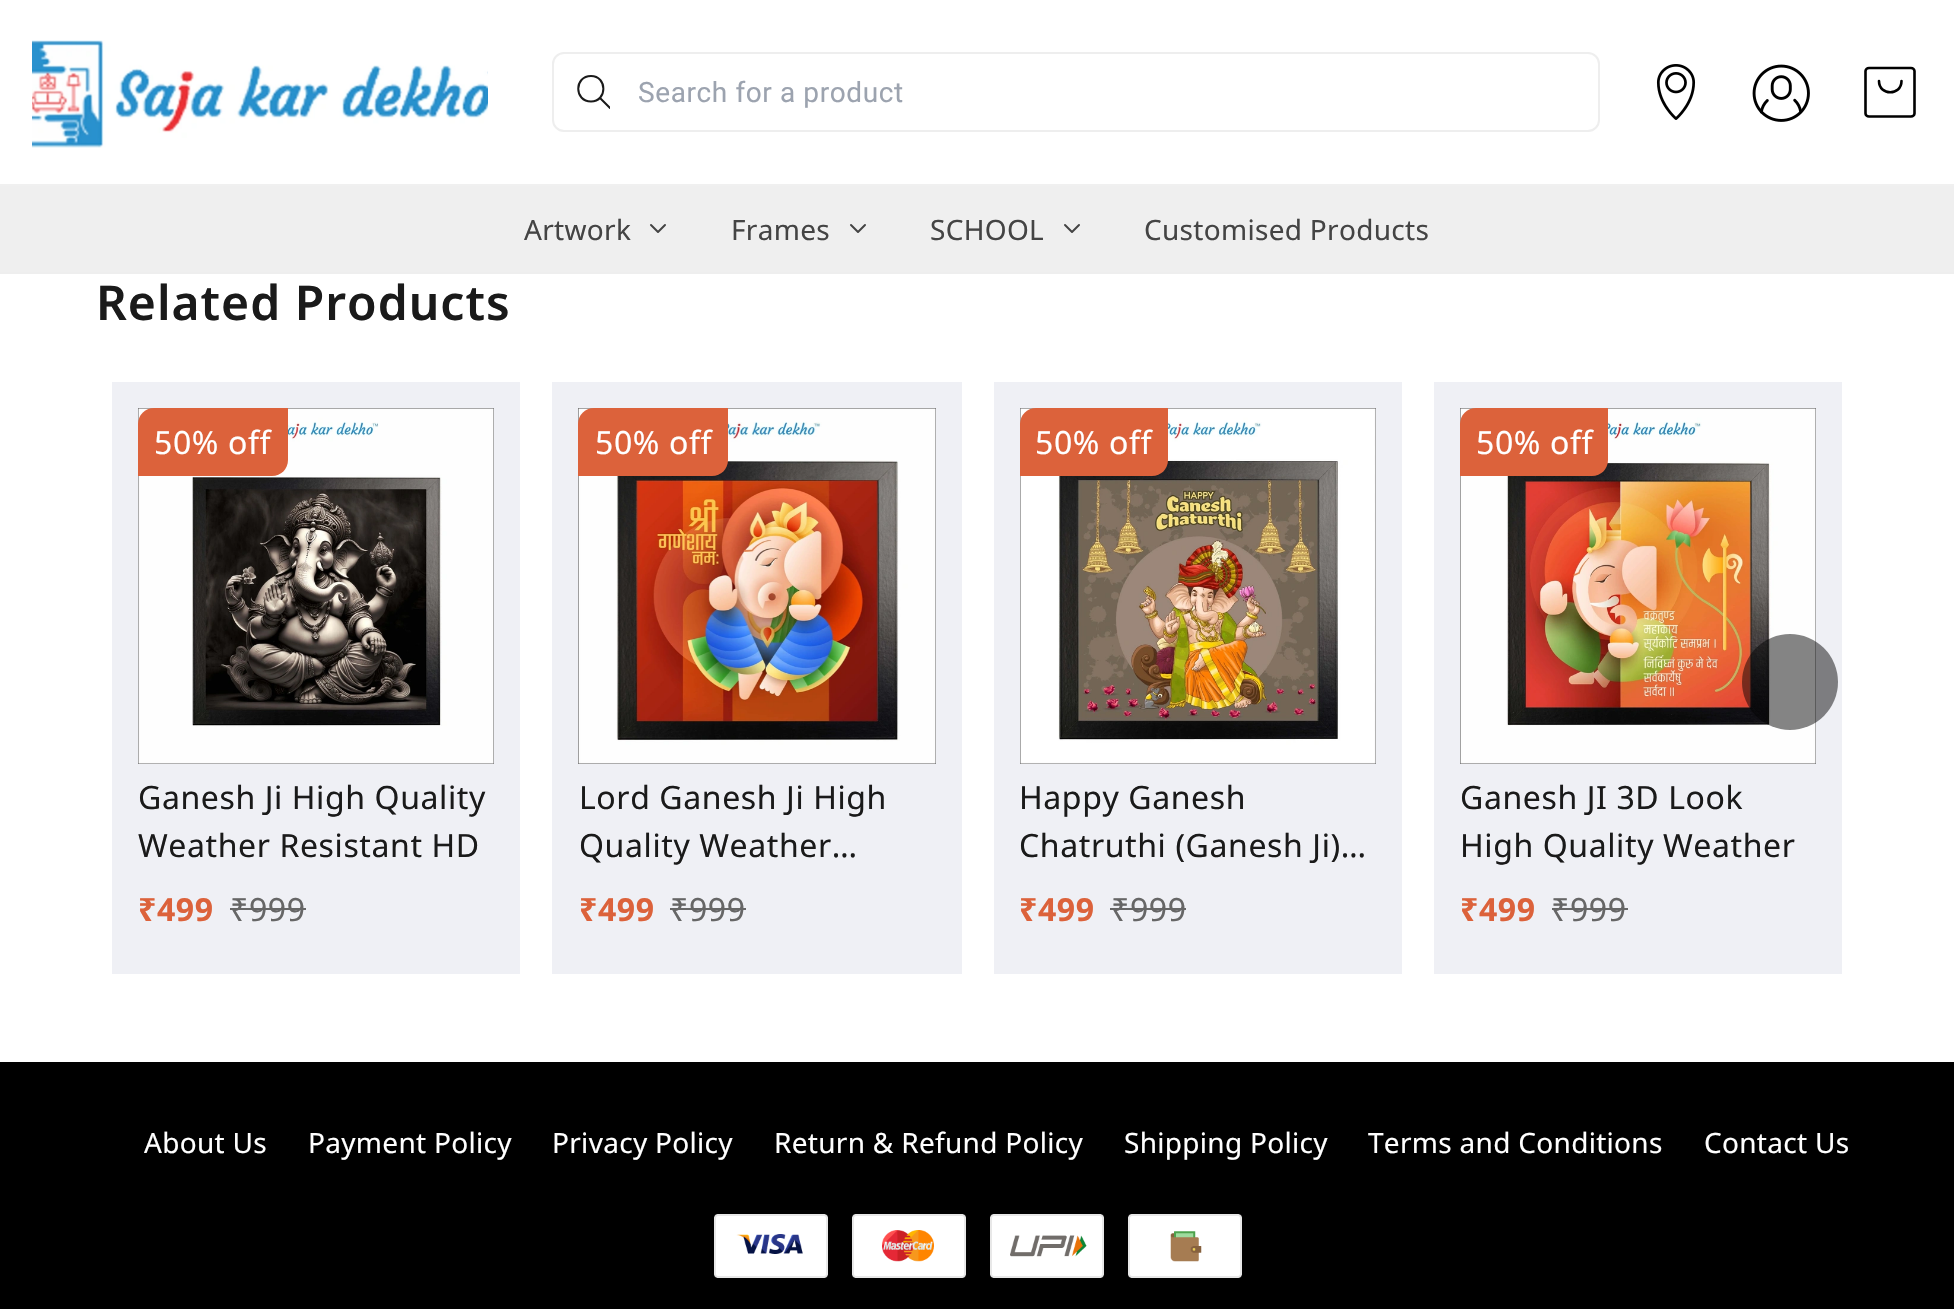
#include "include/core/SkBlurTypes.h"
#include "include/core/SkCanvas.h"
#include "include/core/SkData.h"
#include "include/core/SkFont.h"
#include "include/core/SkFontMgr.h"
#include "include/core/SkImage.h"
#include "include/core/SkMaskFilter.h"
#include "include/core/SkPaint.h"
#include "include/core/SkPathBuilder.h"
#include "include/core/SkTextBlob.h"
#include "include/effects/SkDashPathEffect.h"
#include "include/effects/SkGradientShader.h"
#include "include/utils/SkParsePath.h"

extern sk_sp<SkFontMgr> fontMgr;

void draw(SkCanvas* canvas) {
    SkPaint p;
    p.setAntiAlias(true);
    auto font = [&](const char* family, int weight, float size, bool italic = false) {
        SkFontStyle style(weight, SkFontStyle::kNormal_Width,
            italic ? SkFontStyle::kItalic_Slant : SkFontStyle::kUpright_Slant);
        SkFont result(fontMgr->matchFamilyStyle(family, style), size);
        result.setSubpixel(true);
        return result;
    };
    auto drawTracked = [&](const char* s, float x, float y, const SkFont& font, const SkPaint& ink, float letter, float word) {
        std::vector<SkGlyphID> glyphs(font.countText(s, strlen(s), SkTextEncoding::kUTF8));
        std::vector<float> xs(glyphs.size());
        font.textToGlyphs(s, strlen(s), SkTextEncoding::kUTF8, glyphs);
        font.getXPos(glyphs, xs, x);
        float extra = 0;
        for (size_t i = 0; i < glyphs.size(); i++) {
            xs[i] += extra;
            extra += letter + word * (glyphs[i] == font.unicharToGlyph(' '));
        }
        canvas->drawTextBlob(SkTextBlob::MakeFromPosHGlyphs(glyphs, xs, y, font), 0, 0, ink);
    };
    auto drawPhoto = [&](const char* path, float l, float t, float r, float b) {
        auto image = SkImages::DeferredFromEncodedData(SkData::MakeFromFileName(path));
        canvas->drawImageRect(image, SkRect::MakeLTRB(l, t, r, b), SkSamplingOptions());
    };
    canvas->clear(0xFFFFFFFF);
    p.setColor(0xFFEEEEEE);
    canvas->drawRect(SkRect::MakeLTRB(0, 272, 1954, 274), p);
    drawPhoto("media/1.png", 32, 40, 488, 148);
    p.setStyle(SkPaint::kStroke_Style);
    p.setStrokeWidth(2);
    canvas->drawRoundRect(SkRect::MakeLTRB(553, 53, 1599, 131), 11, 11, p);
    canvas->save();
    canvas->clipRect(SkRect::MakeLTRB(576, 74, 610, 110));
    p.setStrokeCap(SkPaint::kRound_Cap);
    p.setStrokeJoin(SkPaint::kRound_Join);
    p.setColor(0xFF1A1A1A);
    canvas->drawPath(SkPathBuilder().moveTo(610, 108).lineTo(600, 98).detach(), p);
    canvas->restore();
    canvas->drawPath(SkPathBuilder().moveTo(591, 101.5f).cubicTo(607.5f, 101.5f, 607.5f, 76, 591, 76).cubicTo(574, 76, 574, 101.5f, 591, 101.5f).close().detach(), p);
    auto font1 = font("Roboto", 400, 28);
    p.setStyle(SkPaint::kFill_Style);
    p.setColor(0xFF9CA3AF);
    drawTracked("Search for a product", 638, 102, font1, p, 0.6f, 0);
    drawPhoto("media/2.png", 1656, 64, 1696, 120);
    drawPhoto("media/3.png", 1752, 64, 1810, 122);
    p.setStyle(SkPaint::kStroke_Style);
    p.setStrokeWidth(2.6f);
    p.setColor(0xFF000000);
    canvas->drawPath(SkPathBuilder().moveTo(1911, 116.5f).lineTo(1869, 116.5f).cubicTo(1867, 116.5f, 1865.5f, 115, 1865.5f, 113.5f).lineTo(1865.5f, 71).cubicTo(1865.5f, 69.5f, 1867, 68, 1869, 68).lineTo(1911, 68).cubicTo(1913, 68, 1914.5f, 69.5f, 1914.5f, 71).lineTo(1914.5f, 113.5f).cubicTo(1914.5f, 115, 1913, 116.5f, 1911, 116.5f).close().moveTo(1901.5f, 81).cubicTo(1901.5f, 96, 1879, 96, 1879, 81).detach(), p);
    p.setStyle(SkPaint::kFill_Style);
    p.setColor(0xFFEFEFEF);
    canvas->drawRect(SkRect::MakeLTRB(0, 186, 1954, 272), p);
    p.setColor(0xFFF0F0F0);
    canvas->drawRect(SkRect::MakeLTRB(0, 184, 1954, 186), p);
    auto font2 = font("Noto Sans", 400, 28);
    p.setColor(0xFF444444);
    drawTracked("Artwork", 524, 240, font2, p, 0.3f, 0);
    p.setStyle(SkPaint::kStroke_Style);
    p.setStrokeWidth(2);
    canvas->drawPath(SkPathBuilder().moveTo(665, 225).lineTo(658, 232).lineTo(651, 225).detach(), p);
    p.setStyle(SkPaint::kFill_Style);
    drawTracked("Frames", 731, 240, font2, p, 0.3f, 0);
    p.setStyle(SkPaint::kStroke_Style);
    canvas->drawPath(SkPathBuilder().moveTo(865, 225).lineTo(858, 232).lineTo(851, 225).detach(), p);
    p.setStyle(SkPaint::kFill_Style);
    drawTracked("SCHOOL", 930, 240, font2, p, 0.3f, 0);
    p.setStyle(SkPaint::kStroke_Style);
    canvas->drawPath(SkPathBuilder().moveTo(1079, 225).lineTo(1072, 232).lineTo(1065, 225).detach(), p);
    p.setStyle(SkPaint::kFill_Style);
    drawTracked("Customised Products", 1144, 240, font2, p, 0.3f, 0);
    auto font3 = font("Noto Sans", 600, 48);
    p.setColor(0xFF1A1A1A);
    drawTracked("Related Products", 96, 320, font3, p, 1, 0);
    p.setColor(0xFFEFF0F5);
    canvas->drawRect(SkRect::MakeLTRB(112, 382, 520, 974), p);
    drawPhoto("media/4.png", 138, 408, 494, 764);
    p.setColor(0xFFDC623B);
    canvas->drawPath(SkPathBuilder().moveTo(154, 408).lineTo(288, 408).lineTo(288, 460).cubicTo(288, 469, 281, 476, 272, 476).lineTo(138, 476).lineTo(138, 424).cubicTo(138, 415, 145, 408, 154, 408).close().detach(), p);
    auto font4 = font("Noto Sans", 400, 32);
    p.setColor(0xFFFFFFFF);
    drawTracked("50% off", 154, 454, font4, p, 0.6f, 0);
    p.setColor(0xFF1A1A1A);
    drawTracked("Ganesh Ji High Quality", 138, 809, font4, p, 0.6f, 0);
    drawTracked("Weather Resistant HD", 138, 857, font4, p, 0.6f, 0);
    auto font5 = font("Noto Sans", 700, 32);
    p.setColor(0xFFDC623B);
    drawTracked("₹499", 138, 921, font5, p, 0.6f, 0);
    p.setColor(0xFF666666);
    drawTracked("₹999", 230, 921, font4, p, 0.6f, 0);
    canvas->drawRect(SkRect::MakeLTRB(230, 908, 306, 910), p);
    p.setColor(0xFFEFF0F5);
    canvas->drawRect(SkRect::MakeLTRB(552, 382, 962, 974), p);
    drawPhoto("media/5.png", 578, 408, 936, 764);
    p.setColor(0xFFDC623B);
    canvas->drawPath(SkPathBuilder().moveTo(594, 408).lineTo(728, 408).lineTo(728, 460).cubicTo(728, 469, 721, 476, 712, 476).lineTo(578, 476).lineTo(578, 424).cubicTo(578, 415, 585, 408, 594, 408).close().detach(), p);
    p.setColor(0xFFFFFFFF);
    drawTracked("50% off", 595, 454, font4, p, 0.6f, 0);
    p.setColor(0xFF1A1A1A);
    drawTracked("Lord Ganesh Ji High", 579, 809, font4, p, 0.6f, 0);
    drawTracked("Quality Weather…", 579, 857, font4, p, 0.6f, 0);
    p.setColor(0xFFDC623B);
    drawTracked("₹499", 579, 921, font5, p, 0.6f, 0);
    p.setColor(0xFF666666);
    drawTracked("₹999", 670, 921, font4, p, 0.6f, 0);
    canvas->drawRect(SkRect::MakeLTRB(670, 908, 746, 910), p);
    p.setColor(0xFFEFF0F5);
    canvas->drawRect(SkRect::MakeLTRB(994, 382, 1402, 974), p);
    drawPhoto("media/6.png", 1020, 408, 1376, 764);
    p.setColor(0xFFDC623B);
    canvas->drawPath(SkPathBuilder().moveTo(1036, 408).lineTo(1168, 408).lineTo(1168, 460).cubicTo(1168, 469, 1161, 476, 1152, 476).lineTo(1020, 476).lineTo(1020, 424).cubicTo(1020, 415, 1027, 408, 1036, 408).close().detach(), p);
    p.setColor(0xFFFFFFFF);
    drawTracked("50% off", 1035, 454, font4, p, 0.6f, 0);
    p.setColor(0xFF1A1A1A);
    drawTracked("Happy Ganesh", 1019, 809, font4, p, 0.6f, 0);
    drawTracked("Chatruthi (Ganesh Ji)…", 1019, 857, font4, p, 0.6f, 0);
    p.setColor(0xFFDC623B);
    drawTracked("₹499", 1019, 921, font5, p, 0.6f, 0);
    p.setColor(0xFF666666);
    drawTracked("₹999", 1111, 921, font4, p, 0.6f, 0);
    canvas->drawRect(SkRect::MakeLTRB(1110, 908, 1186, 910), p);
    p.setColor(0xFFEFF0F5);
    canvas->drawRect(SkRect::MakeLTRB(1434, 382, 1842, 974), p);
    drawPhoto("media/7.png", 1460, 408, 1816, 764);
    p.setColor(0xFFDC623B);
    canvas->drawPath(SkPathBuilder().moveTo(1476, 408).lineTo(1608, 408).lineTo(1608, 460).cubicTo(1608, 469, 1601, 476, 1592, 476).lineTo(1460, 476).lineTo(1460, 424).cubicTo(1460, 415, 1467, 408, 1476, 408).close().detach(), p);
    p.setColor(0xFFFFFFFF);
    drawTracked("50% off", 1476, 454, font4, p, 0.6f, 0);
    p.setColor(0xFF1A1A1A);
    drawTracked("Ganesh JI 3D Look", 1460, 809, font4, p, 0.6f, 0);
    drawTracked("High Quality Weather", 1460, 857, font4, p, 0.6f, 0);
    p.setColor(0xFFDC623B);
    drawTracked("₹499", 1460, 921, font5, p, 0.6f, 0);
    p.setColor(0xFF666666);
    drawTracked("₹999", 1551, 921, font4, p, 0.6f, 0);
    canvas->drawRect(SkRect::MakeLTRB(1552, 908, 1628, 910), p);
    p.setColor(0x7A000000);
    canvas->drawCircle(1790, 682, 48, p);
    p.setColor(0xFF000000);
    canvas->drawRect(SkRect::MakeLTRB(0, 1062, 1954, 1309), p);
    p.setColor(0xFFFFFFFF);
    {
        const struct { const char* s; float x, y; } items[] = {
            {"About Us", 144, 1153},
            {"Payment Policy", 308, 1153},
            {"Privacy Policy", 552, 1153},
            {"Return & Refund Policy", 774, 1153},
            {"Shipping Policy", 1124, 1153},
            {"Terms and Conditions", 1368, 1153},
            {"Contact Us", 1704, 1153},
        };
        for (auto [s, x, y] : items) {
            drawTracked(s, x, y, font2, p, 0.3f, 0);
        }
    }
    drawPhoto("media/8.png", 714, 1214, 1242, 1278);
}
